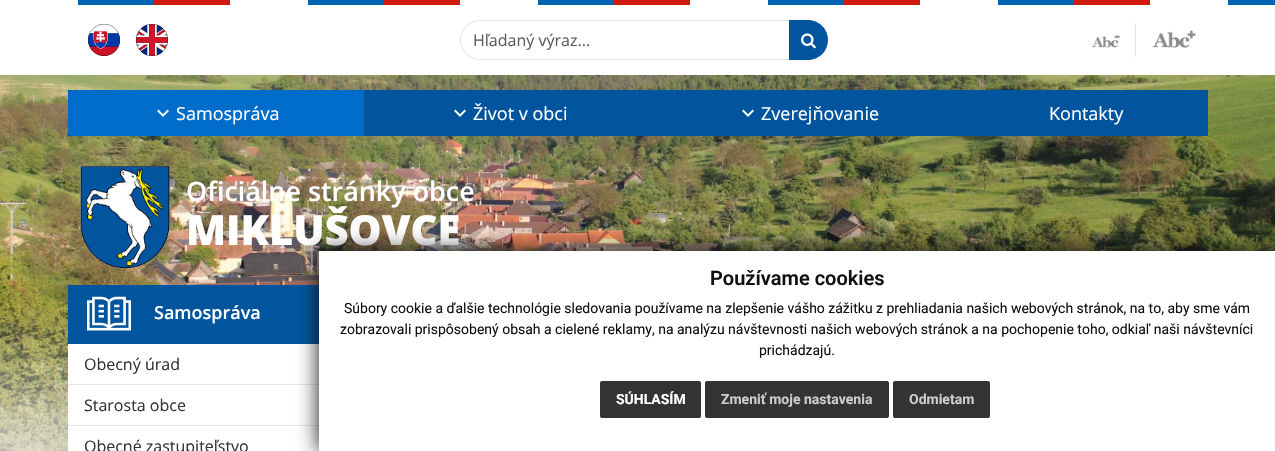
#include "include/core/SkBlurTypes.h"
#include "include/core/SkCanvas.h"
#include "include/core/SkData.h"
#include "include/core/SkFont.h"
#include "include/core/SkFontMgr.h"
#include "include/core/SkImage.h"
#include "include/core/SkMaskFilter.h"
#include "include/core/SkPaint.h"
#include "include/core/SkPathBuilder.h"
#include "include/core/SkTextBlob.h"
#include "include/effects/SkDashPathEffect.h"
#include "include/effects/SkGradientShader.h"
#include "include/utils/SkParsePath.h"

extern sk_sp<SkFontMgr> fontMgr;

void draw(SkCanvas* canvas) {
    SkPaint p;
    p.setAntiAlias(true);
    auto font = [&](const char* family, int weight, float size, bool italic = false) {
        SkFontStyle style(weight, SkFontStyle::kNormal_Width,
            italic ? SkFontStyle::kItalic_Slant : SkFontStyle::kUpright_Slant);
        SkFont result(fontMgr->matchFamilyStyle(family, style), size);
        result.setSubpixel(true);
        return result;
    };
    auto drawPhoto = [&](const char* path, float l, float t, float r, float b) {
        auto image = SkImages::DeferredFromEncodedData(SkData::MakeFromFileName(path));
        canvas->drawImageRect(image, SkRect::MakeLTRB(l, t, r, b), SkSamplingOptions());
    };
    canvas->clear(0xFFFFFFFF);
    drawPhoto("media/1.png", 0, 0, 1275, 5);
    drawPhoto("media/2.png", 88, 24, 120, 56);
    drawPhoto("media/3.png", 136, 24, 168, 56);
    p.setColor(0xFFE6E6E6);
    canvas->drawPath(SkPathBuilder(SkPathFillType::kEvenOdd).moveTo(480, 20).lineTo(789, 20).lineTo(789, 60).lineTo(480, 60).cubicTo(469, 60, 460, 51, 460, 40).cubicTo(460, 29, 469, 20, 480, 20).close().moveTo(480, 21).lineTo(789, 21).lineTo(789, 59).lineTo(480, 59).cubicTo(470, 59, 461, 50, 461, 40).cubicTo(461, 30, 470, 21, 480, 21).close().detach(), p);
    auto font1 = font("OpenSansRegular", 400, 16);
    p.setColor(0xFF595C5F);
    canvas->drawString("Hľadaný výraz...", 473, 46, font1, p);
    p.setColor(0xFF01559E);
    canvas->drawPath(SkPathBuilder().moveTo(789, 20).lineTo(808, 20).cubicTo(819, 20, 828, 29, 828, 40).cubicTo(828, 51, 819, 60, 808, 60).lineTo(789, 60).close().detach(), p);
    drawPhoto("media/4.png", 801, 33, 816, 49);
    drawPhoto("media/5.png", 1092, 35, 1120, 48);
    p.setColor(0xFFE6E6E6);
    canvas->drawRect(SkRect::MakeLTRB(1135, 23, 1136, 57), p);
    drawPhoto("media/6.png", 1152, 30, 1196, 48);
    drawPhoto("media/9.png", 0, 75, 1275, 451);
    p.setColor(0xFF01559E);
    canvas->drawRect(SkRect::MakeLTRB(68, 90, 1208, 136), p);
    p.setColor(0xFF016DCB);
    canvas->drawPath(SkPathBuilder().moveTo(73, 90).lineTo(364, 90).lineTo(364, 136).lineTo(73, 136).cubicTo(70, 136, 68, 134, 68, 131).lineTo(68, 95).cubicTo(68, 92, 70, 90, 73, 90).close().detach(), p);
    drawPhoto("media/7.png", 157, 109, 169, 117);
    auto font2 = font("OpenSansRegular", 400, 18);
    p.setColor(0xFFFFFFFF);
    canvas->drawString("Samospráva", 176, 120, font2, p);
    drawPhoto("media/8.png", 454, 109, 466, 117);
    canvas->drawString("Život v obci", 473, 120, font2, p);
    drawPhoto("media/8.png", 742, 109, 754, 117);
    canvas->drawString("Zverejňovanie", 761, 120, font2, p);
    canvas->drawString("Kontakty", 1049, 120, font2, p);
    drawPhoto("media/10.png", 80, 166, 170, 269);
    auto font3 = font("Open Sans", 600, 26.9f);
    canvas->drawString("Oficiálne stránky obce", 186, 201, font3, p);
    auto font4 = font("Open Sans", 800, 41.5f);
    canvas->drawString("MIKLUŠOVCE", 186, 245, font4, p);
    p.setColor(0x12000000);
    p.setMaskFilter(SkMaskFilter::MakeBlur(kNormal_SkBlurStyle, 20));
    canvas->drawRect(SkRect::MakeLTRB(68, 315, 1208, 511), p);
    p.setMaskFilter(nullptr);
    p.setColor(0xFFFFFFFF);
    canvas->drawRect(SkRect::MakeLTRB(68, 344, 319, 451), p);
    p.setColor(0xFF01559E);
    canvas->drawRect(SkRect::MakeLTRB(68, 285, 319, 344), p);
    drawPhoto("media/11.png", 87, 296, 131, 331);
    auto font5 = font("Open Sans", 600, 18);
    p.setColor(0xFFFFFFFF);
    canvas->drawString("Samospráva", 154, 319, font5, p);
    p.setColor(0xFFE6E6E6);
    canvas->drawRect(SkRect::MakeLTRB(68, 384, 319, 385), p);
    p.setColor(0xFF333333);
    canvas->drawString("Obecný úrad", 84, 370, font1, p);
    p.setColor(0xFFE6E6E6);
    canvas->drawRect(SkRect::MakeLTRB(68, 425, 319, 426), p);
    p.setColor(0xFF333333);
    canvas->drawString("Starosta obce", 84, 411, font1, p);
    canvas->drawString("Obecné zastupiteľstvo", 84, 452, font1, p);
    p.setColor(0xFF111111);
    p.setMaskFilter(SkMaskFilter::MakeBlur(kNormal_SkBlurStyle, 10));
    canvas->drawRect(SkRect::MakeLTRB(319, 251, 1275, 451), p);
    p.setMaskFilter(nullptr);
    p.setColor(0xFFFFFFFF);
    canvas->drawRect(SkRect::MakeLTRB(319, 251, 1275, 451), p);
    auto font6 = font("Roboto", 600, 20);
    p.setColor(0xFF111111);
    canvas->drawString("Používame cookies", 710, 285, font6, p);
    auto font7 = font("Roboto", 400, 14);
    {
        const struct { const char* s; float x, y; } items[] = {
            {"Súbory cookie a ďalšie technológie sledovania používame na zlepšenie vášho zážitku z prehliadania našich webových stránok, na to, aby sme vám", 344, 313},
            {"zobrazovali prispôsobený obsah a cielené reklamy, na analýzu návštevnosti našich webových stránok a na pochopenie toho, odkiaľ naši návštevníci", 340, 334},
            {"prichádzajú.", 759, 355},
        };
        for (auto [s, x, y] : items) {
            canvas->drawString(s, x, y, font7, p);
        }
    }
    p.setColor(0xFF333333);
    canvas->drawRoundRect(SkRect::MakeLTRB(600, 381, 701, 418), 2, 2, p);
    auto font8 = font("Roboto", 700, 14);
    p.setColor(0xFFFFFFFF);
    canvas->drawString("SÚHLASÍM", 616, 404, font8, p);
    p.setColor(0xFF333333);
    canvas->drawRoundRect(SkRect::MakeLTRB(705, 381, 889, 418), 2, 2, p);
    p.setColor(0xFFCCCCCC);
    canvas->drawString("Zmeniť moje nastavenia", 721, 404, font8, p);
    p.setColor(0xFF333333);
    canvas->drawRoundRect(SkRect::MakeLTRB(893, 381, 990, 418), 2, 2, p);
    p.setColor(0xFFCCCCCC);
    canvas->drawString("Odmietam", 909, 404, font8, p);
}
